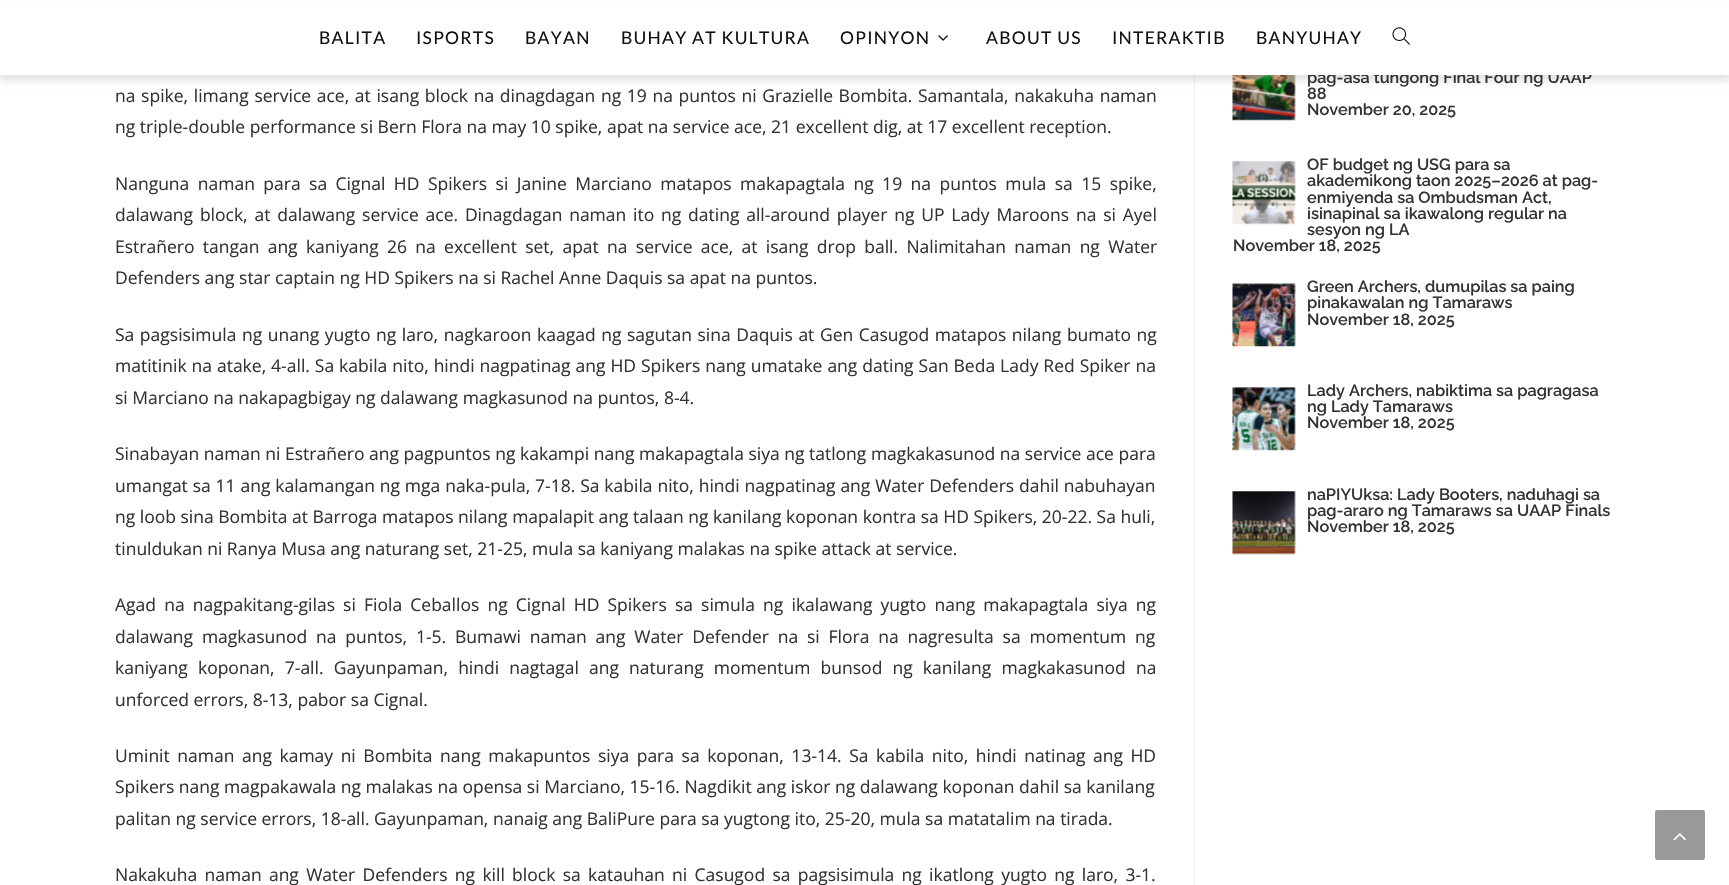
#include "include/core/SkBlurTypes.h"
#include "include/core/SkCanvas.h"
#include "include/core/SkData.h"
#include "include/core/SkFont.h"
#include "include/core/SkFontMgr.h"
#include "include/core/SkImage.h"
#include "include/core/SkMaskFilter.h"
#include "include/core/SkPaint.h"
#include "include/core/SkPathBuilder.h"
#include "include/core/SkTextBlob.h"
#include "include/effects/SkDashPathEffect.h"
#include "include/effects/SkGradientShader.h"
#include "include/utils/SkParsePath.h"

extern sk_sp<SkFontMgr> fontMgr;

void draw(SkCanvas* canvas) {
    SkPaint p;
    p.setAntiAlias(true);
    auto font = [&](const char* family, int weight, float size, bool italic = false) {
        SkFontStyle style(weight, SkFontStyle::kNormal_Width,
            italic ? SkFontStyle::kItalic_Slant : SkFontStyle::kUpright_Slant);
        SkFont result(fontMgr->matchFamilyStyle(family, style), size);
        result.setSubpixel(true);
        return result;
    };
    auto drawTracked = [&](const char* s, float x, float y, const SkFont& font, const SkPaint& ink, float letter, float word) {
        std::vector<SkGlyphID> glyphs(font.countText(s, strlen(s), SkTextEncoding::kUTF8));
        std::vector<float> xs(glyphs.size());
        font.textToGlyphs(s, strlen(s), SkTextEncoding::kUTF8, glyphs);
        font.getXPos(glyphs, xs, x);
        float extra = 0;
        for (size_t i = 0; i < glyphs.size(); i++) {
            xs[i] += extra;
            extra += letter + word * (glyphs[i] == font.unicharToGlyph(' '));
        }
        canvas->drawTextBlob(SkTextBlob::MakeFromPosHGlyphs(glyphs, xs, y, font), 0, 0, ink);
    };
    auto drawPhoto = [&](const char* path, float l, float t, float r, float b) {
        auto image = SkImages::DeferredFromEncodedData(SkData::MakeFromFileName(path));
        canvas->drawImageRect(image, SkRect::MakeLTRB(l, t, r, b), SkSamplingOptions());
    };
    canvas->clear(0xFFFFFFFF);
    p.setColor(0xFFF1F1F1);
    canvas->drawRect(SkRect::MakeLTRB(1194, 75, 1195, 885), p);
    drawPhoto("media/3.png", 1232, 75, 1296, 121);
    p.setColor(0x1A000000);
    p.setMaskFilter(SkMaskFilter::MakeBlur(kNormal_SkBlurStyle, 3));
    canvas->drawRect(SkRect::MakeLTRB(0, 6, 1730, 81), p);
    p.setMaskFilter(nullptr);
    auto font1 = font("Raleway", 600, 16.25f);
    p.setColor(0xFF333333);
    canvas->drawString("pag-asa tungong Final Four ng UAAP", 1307, 83, font1, p);
    p.setColor(0xFFFFFFFF);
    canvas->drawRect(SkRect::MakeLTRB(0, 2, 1729, 75), p);
    auto font2 = font("Lato", 400, 17.5f);
    p.setColor(0xFF111111);
    {
        const struct { const char* s; float x, y; } items[] = {
            {"BALITA", 319, 44},
            {"ISPORTS", 416, 44},
            {"BAYAN", 525, 44},
            {"BUHAY AT KULTURA", 621, 44},
            {"OPINYON", 840, 44},
        };
        for (auto [s, x, y] : items) {
            drawTracked(s, x, y, font2, p, 1.25f, 0);
        }
    }
    drawPhoto("media/1.png", 938, 35, 948, 41);
    {
        const struct { const char* s; float x, y; } items[] = {
            {"ABOUT US", 986, 44},
            {"INTERAKTIB", 1112, 44},
            {"BANYUHAY", 1256, 44},
        };
        for (auto [s, x, y] : items) {
            drawTracked(s, x, y, font2, p, 1.25f, 0);
        }
    }
    drawPhoto("media/2.png", 1392, 27, 1410, 45);
    auto font3 = font("Open Sans", 400, 17.5f);
    p.setColor(0xFF333333);
    drawTracked("na spike, limang service ace, at isang block na dinagdagan ng 19 na puntos ni Grazielle Bombita. Samantala, nakakuha naman", 115, 102, font3, p, 0, 1.1f);
    canvas->drawString("ng triple-double performance si Bern Flora na may 10 spike, apat na service ace, 21 excellent dig, at 17 excellent reception.", 115, 133, font3, p);
    drawTracked("Nanguna naman para sa Cignal HD Spikers si Janine Marciano matapos makapagtala ng 19 na puntos mula sa 15 spike,", 115, 190, font3, p, 0, 3.9f);
    drawTracked("dalawang block, at dalawang service ace. Dinagdagan naman ito ng dating all-around player ng UP Lady Maroons na si Ayel", 115, 221, font3, p, 0, 2.25f);
    drawTracked("Estrañero tangan ang kaniyang 26 na excellent set, apat na service ace, at isang drop ball. Nalimitahan naman ng Water", 115, 253, font3, p, 0, 3.75f);
    canvas->drawString("Defenders ang star captain ng HD Spikers na si Rachel Anne Daquis sa apat na puntos.", 115, 284, font3, p);
    drawTracked("Sa pagsisimula ng unang yugto ng laro, nagkaroon kaagad ng sagutan sina Daquis at Gen Casugod matapos nilang bumato ng", 115, 341, font3, p, 0, 1);
    drawTracked("matitinik na atake, 4-all. Sa kabila nito, hindi nagpatinag ang HD Spikers nang umatake ang dating San Beda Lady Red Spiker na", 115, 372, font3, p, 0, 0.4f);
    canvas->drawString("si Marciano na nakapagbigay ng dalawang magkasunod na puntos, 8-4.", 115, 404, font3, p);
    canvas->drawString("Sinabayan naman ni Estrañero ang pagpuntos ng kakampi nang makapagtala siya ng tatlong magkakasunod na service ace para", 115, 460, font3, p);
    drawTracked("umangat sa 11 ang kalamangan ng mga naka-pula, 7-18. Sa kabila nito, hindi nagpatinag ang Water Defenders dahil nabuhayan", 115, 492, font3, p, 0, 0.3f);
    canvas->drawString("ng loob sina Bombita at Barroga matapos nilang mapalapit ang talaan ng kanilang koponan kontra sa HD Spikers, 20-22. Sa huli,", 115, 523, font3, p);
    canvas->drawString("tinuldukan ni Ranya Musa ang naturang set, 21-25, mula sa kaniyang malakas na spike attack at service.", 115, 555, font3, p);
    drawTracked("Agad na nagpakitang-gilas si Fiola Ceballos ng Cignal HD Spikers sa simula ng ikalawang yugto nang makapagtala siya ng", 115, 611, font3, p, 0, 3.6f);
    drawTracked("dalawang magkasunod na puntos, 1-5. Bumawi naman ang Water Defender na si Flora na nagresulta sa momentum ng", 115, 643, font3, p, 0, 4.25f);
    drawTracked("kaniyang koponan, 7-all. Gayunpaman, hindi nagtagal ang naturang momentum bunsod ng kanilang magkakasunod na", 115, 674, font3, p, 0, 5.6f);
    canvas->drawString("unforced errors, 8-13, pabor sa Cignal.", 115, 706, font3, p);
    drawTracked("Uminit naman ang kamay ni Bombita nang makapuntos siya para sa koponan, 13-14. Sa kabila nito, hindi natinag ang HD", 115, 762, font3, p, 0, 3);
    canvas->drawString("Spikers nang magpakawala ng malakas na opensa si Marciano, 15-16. Nagdikit ang iskor ng dalawang koponan dahil sa kanilang", 115, 793, font3, p);
    canvas->drawString("palitan ng service errors, 18-all. Gayunpaman, nanaig ang BaliPure para sa yugtong ito, 25-20, mula sa matatalim na tirada.", 115, 825, font3, p);
    drawTracked("Nakakuha naman ang Water Defenders ng kill block sa katauhan ni Casugod sa pagsisimula ng ikatlong yugto ng laro, 3-1.", 115, 881, font3, p, 0, 2.75f);
    canvas->drawString("88", 1307, 99, font1, p);
    canvas->drawString("November 20, 2025", 1307, 115, font1, p);
    drawPhoto("media/4.png", 1232, 161, 1296, 225);
    {
        const struct { const char* s; float x, y; } items[] = {
            {"OF budget ng USG para sa", 1307, 170},
            {"akademikong taon 2025–2026 at pag-", 1307, 186},
            {"enmiyenda sa Ombudsman Act,", 1307, 203},
            {"isinapinal sa ikawalong regular na", 1307, 219},
            {"sesyon ng LA", 1307, 235},
            {"November 18, 2025", 1233, 251},
        };
        for (auto [s, x, y] : items) {
            canvas->drawString(s, x, y, font1, p);
        }
    }
    drawPhoto("media/5.png", 1232, 283, 1296, 347);
    {
        const struct { const char* s; float x, y; } items[] = {
            {"Green Archers, dumupilas sa paing", 1307, 292},
            {"pinakawalan ng Tamaraws", 1307, 308},
            {"November 18, 2025", 1307, 325},
        };
        for (auto [s, x, y] : items) {
            canvas->drawString(s, x, y, font1, p);
        }
    }
    drawPhoto("media/6.png", 1232, 387, 1296, 451);
    {
        const struct { const char* s; float x, y; } items[] = {
            {"Lady Archers, nabiktima sa pagragasa", 1307, 396},
            {"ng Lady Tamaraws", 1307, 412},
            {"November 18, 2025", 1307, 428},
        };
        for (auto [s, x, y] : items) {
            canvas->drawString(s, x, y, font1, p);
        }
    }
    drawPhoto("media/7.png", 1232, 491, 1296, 555);
    {
        const struct { const char* s; float x, y; } items[] = {
            {"naPIYUksa: Lady Booters, naduhagi sa", 1307, 500},
            {"pag-araro ng Tamaraws sa UAAP Finals", 1307, 516},
            {"November 18, 2025", 1307, 532},
        };
        for (auto [s, x, y] : items) {
            canvas->drawString(s, x, y, font1, p);
        }
    }
    p.setColor(0xFF999999);
    canvas->drawRoundRect(SkRect::MakeLTRB(1655, 810, 1705, 860), 2.5f, 2.5f, p);
    drawPhoto("media/8.png", 1673, 833, 1686, 841);
}
